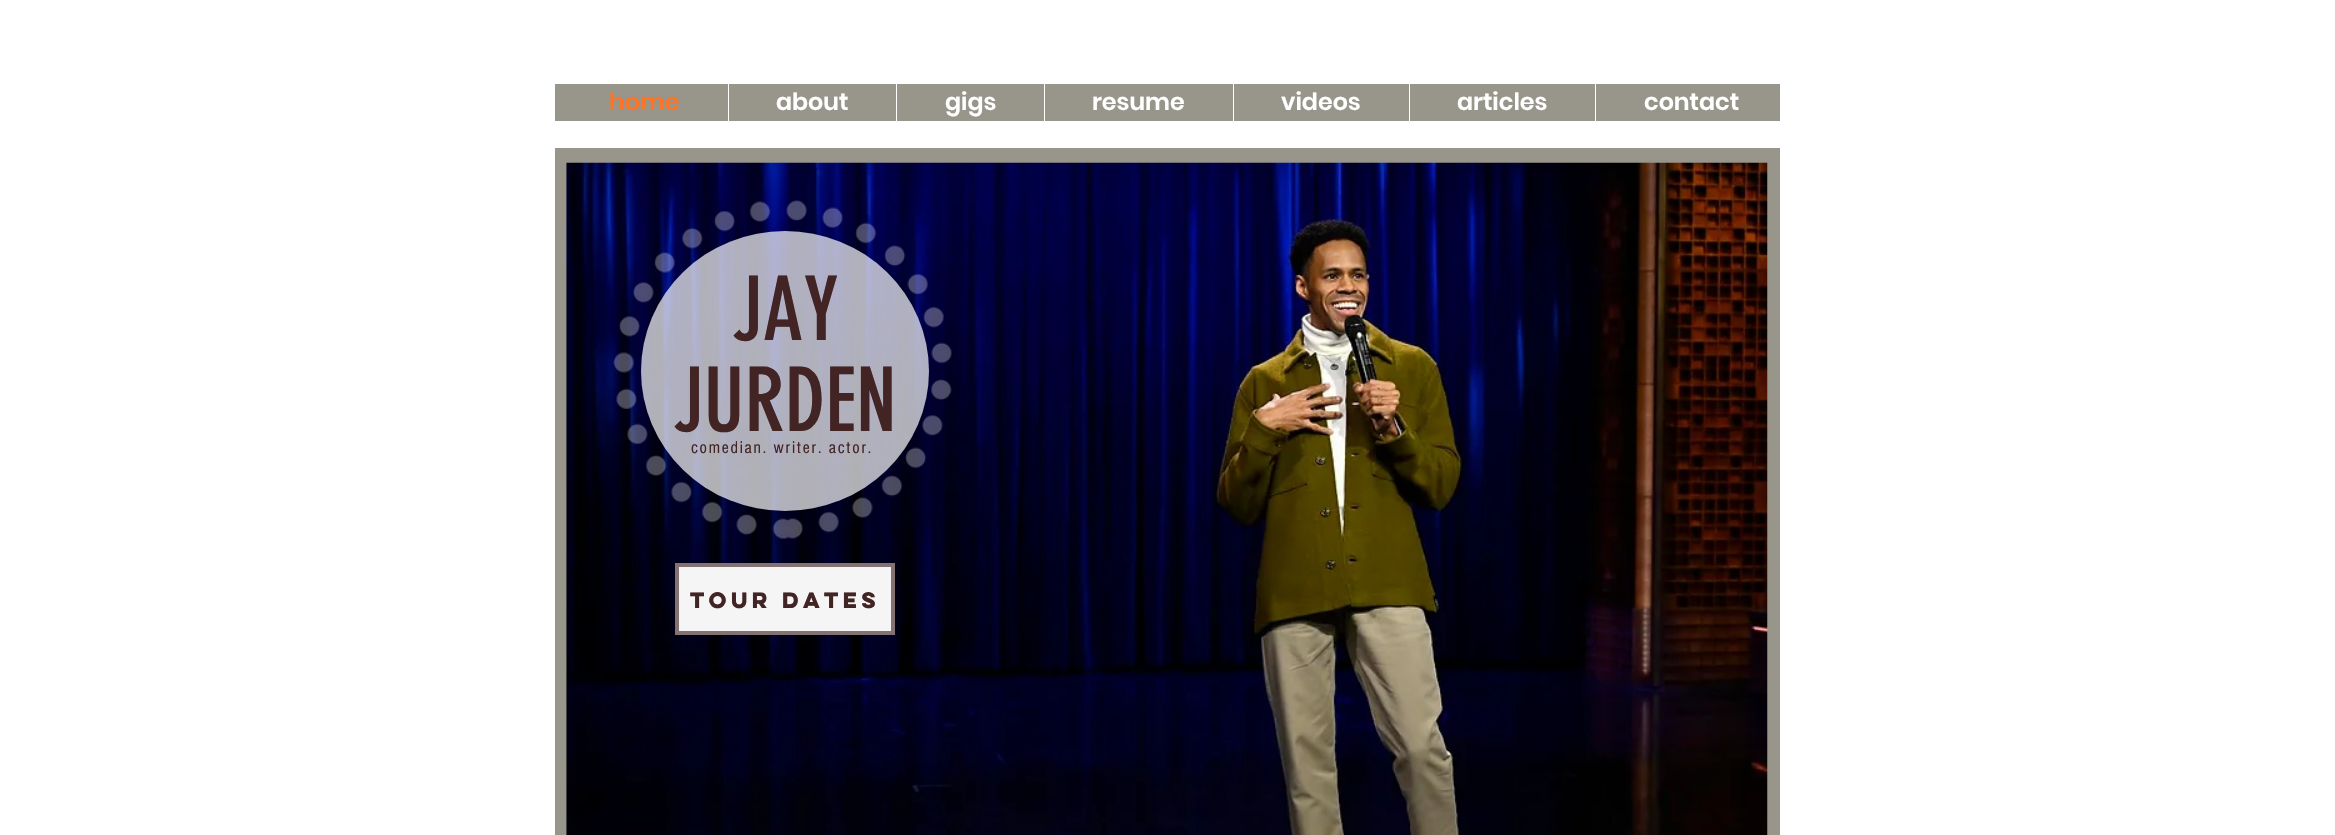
#include "include/core/SkBlurTypes.h"
#include "include/core/SkCanvas.h"
#include "include/core/SkData.h"
#include "include/core/SkFont.h"
#include "include/core/SkFontMgr.h"
#include "include/core/SkImage.h"
#include "include/core/SkMaskFilter.h"
#include "include/core/SkPaint.h"
#include "include/core/SkPathBuilder.h"
#include "include/core/SkTextBlob.h"
#include "include/effects/SkDashPathEffect.h"
#include "include/effects/SkGradientShader.h"
#include "include/utils/SkParsePath.h"

extern sk_sp<SkFontMgr> fontMgr;

void draw(SkCanvas* canvas) {
    SkPaint p;
    p.setAntiAlias(true);
    auto font = [&](const char* family, int weight, float size, bool italic = false) {
        SkFontStyle style(weight, SkFontStyle::kNormal_Width,
            italic ? SkFontStyle::kItalic_Slant : SkFontStyle::kUpright_Slant);
        SkFont result(fontMgr->matchFamilyStyle(family, style), size);
        result.setSubpixel(true);
        return result;
    };
    auto drawTracked = [&](const char* s, float x, float y, const SkFont& font, const SkPaint& ink, float letter, float word) {
        std::vector<SkGlyphID> glyphs(font.countText(s, strlen(s), SkTextEncoding::kUTF8));
        std::vector<float> xs(glyphs.size());
        font.textToGlyphs(s, strlen(s), SkTextEncoding::kUTF8, glyphs);
        font.getXPos(glyphs, xs, x);
        float extra = 0;
        for (size_t i = 0; i < glyphs.size(); i++) {
            xs[i] += extra;
            extra += letter + word * (glyphs[i] == font.unicharToGlyph(' '));
        }
        canvas->drawTextBlob(SkTextBlob::MakeFromPosHGlyphs(glyphs, xs, y, font), 0, 0, ink);
    };
    auto drawPhoto = [&](const char* path, float l, float t, float r, float b) {
        auto image = SkImages::DeferredFromEncodedData(SkData::MakeFromFileName(path));
        canvas->drawImageRect(image, SkRect::MakeLTRB(l, t, r, b), SkSamplingOptions());
    };
    canvas->clear(0xFFFFFFFF);
    p.setColor(0xFF98968B);
    canvas->drawRect(SkRect::MakeLTRB(555, 84, 1780, 121), p);
    auto font1 = font("Poppins", 600, 23.75f);
    p.setColor(0xFFFF7324);
    canvas->drawString("home", 609, 110, font1, p);
    p.setColor(0xFFFFFFFF);
    canvas->drawRect(SkRect::MakeLTRB(728, 84, 729, 121), p);
    canvas->drawString("about", 776, 110, font1, p);
    canvas->drawRect(SkRect::MakeLTRB(896, 84, 897, 121), p);
    canvas->drawString("gigs", 945, 110, font1, p);
    canvas->drawRect(SkRect::MakeLTRB(1044, 84, 1045, 121), p);
    canvas->drawString("resume", 1092, 110, font1, p);
    canvas->drawRect(SkRect::MakeLTRB(1233, 84, 1234, 121), p);
    canvas->drawString("videos", 1281, 110, font1, p);
    canvas->drawRect(SkRect::MakeLTRB(1409, 84, 1410, 121), p);
    canvas->drawString("articles", 1457, 110, font1, p);
    canvas->drawRect(SkRect::MakeLTRB(1595, 84, 1596, 121), p);
    canvas->drawString("contact", 1644, 110, font1, p);
    p.setColor(0xFF98968B);
    canvas->drawRect(SkRect::MakeLTRB(555, 148, 1780, 835), p);
    drawPhoto("media/1.png", 566, 162, 1768, 835);
    p.setColor(0xB0FFFFFF);
    canvas->drawOval(SkRect::MakeLTRB(641, 231, 929, 511), p);
    auto font2 = font("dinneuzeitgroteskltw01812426", 400, 87.5f);
    p.setColor(0xFF422424);
    canvas->drawString("JAY", 732, 340, font2, p);
    canvas->drawString("JURDEN", 673, 431, font2, p);
    auto font3 = font("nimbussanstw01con", 400, 17.5f);
    drawTracked("comedian. writer. actor.", 691, 453, font3, p, 1.75f, 0);
    drawPhoto("media/2.png", 613, 200, 952, 539);
    p.setColor(0xFFF5F5F5);
    canvas->drawRect(SkRect::MakeLTRB(677, 565, 893, 633), p);
    p.setStyle(SkPaint::kStroke_Style);
    p.setStrokeWidth(4);
    p.setColor(0xFF847171);
    canvas->drawRect(SkRect::MakeLTRB(677, 565, 893, 633), p);
    auto font4 = font("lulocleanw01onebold", 700, 20);
    p.setStyle(SkPaint::kFill_Style);
    p.setColor(0xFF422424);
    canvas->drawString("Tour Dates", 690, 608, font4, p);
}
